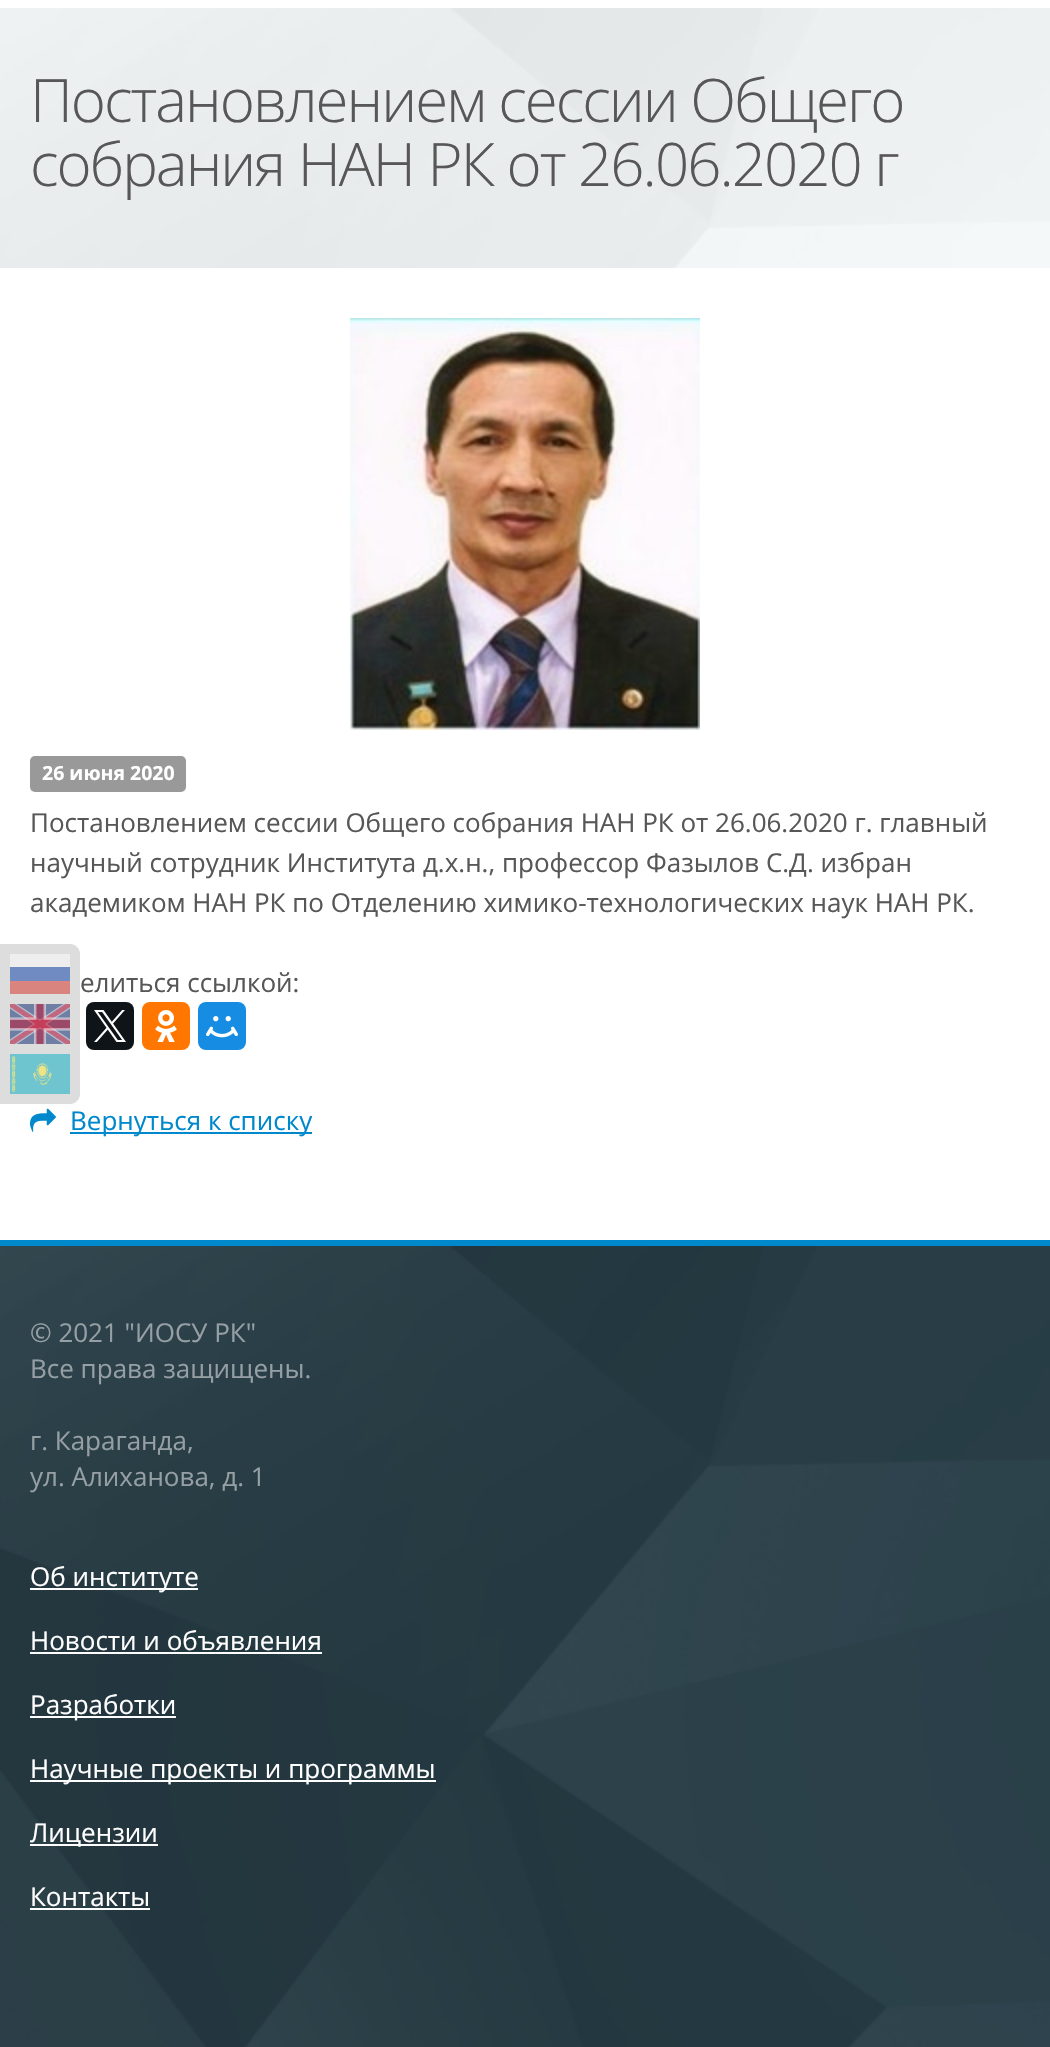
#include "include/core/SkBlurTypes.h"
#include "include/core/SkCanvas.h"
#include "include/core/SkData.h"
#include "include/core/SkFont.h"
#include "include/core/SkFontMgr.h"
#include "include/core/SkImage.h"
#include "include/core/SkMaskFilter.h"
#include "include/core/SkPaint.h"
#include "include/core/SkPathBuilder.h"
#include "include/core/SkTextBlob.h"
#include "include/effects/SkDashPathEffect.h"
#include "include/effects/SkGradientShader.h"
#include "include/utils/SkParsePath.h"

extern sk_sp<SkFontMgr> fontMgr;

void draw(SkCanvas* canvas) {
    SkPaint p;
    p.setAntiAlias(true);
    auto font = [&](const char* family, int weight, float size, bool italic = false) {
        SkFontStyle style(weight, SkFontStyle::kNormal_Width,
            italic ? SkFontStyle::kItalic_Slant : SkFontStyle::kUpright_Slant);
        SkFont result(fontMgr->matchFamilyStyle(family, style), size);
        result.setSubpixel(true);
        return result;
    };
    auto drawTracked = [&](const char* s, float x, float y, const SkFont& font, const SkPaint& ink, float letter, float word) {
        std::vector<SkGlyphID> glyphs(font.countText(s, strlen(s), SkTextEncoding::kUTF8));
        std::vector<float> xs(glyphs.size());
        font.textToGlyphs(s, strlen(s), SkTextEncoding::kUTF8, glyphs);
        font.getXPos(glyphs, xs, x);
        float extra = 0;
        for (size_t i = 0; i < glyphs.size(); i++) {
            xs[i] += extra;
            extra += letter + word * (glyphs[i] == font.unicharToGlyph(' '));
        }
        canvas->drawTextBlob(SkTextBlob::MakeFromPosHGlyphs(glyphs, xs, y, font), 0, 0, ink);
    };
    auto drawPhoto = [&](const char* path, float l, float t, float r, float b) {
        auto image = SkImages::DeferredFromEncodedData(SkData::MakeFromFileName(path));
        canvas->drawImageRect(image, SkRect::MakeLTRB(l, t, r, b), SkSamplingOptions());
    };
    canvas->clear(0xFFFFFFFF);
    p.setColor(0xFFF8FBFC);
    canvas->drawRect(SkRect::MakeLTRB(0, 8, 1050, 268), p);
    drawPhoto("media/1.png", 0, 8, 1050, 268);
    auto font1 = font("Open Sans", 300, 60);
    p.setColor(0xFF575757);
    drawTracked("Постановлением сессии Общего", 30, 122, font1, p, -2, 0);
    drawTracked("собрания НАН РК от 26.06.2020 г", 30, 186, font1, p, -2, 0);
    drawPhoto("media/2.png", 350, 318, 700, 730);
    p.setColor(0xFF999999);
    canvas->drawRoundRect(SkRect::MakeLTRB(30, 756, 186, 792), 5, 5, p);
    auto font2 = font("Open Sans", 700, 19.5f);
    p.setColor(0xFFFFFFFF);
    canvas->drawString("26 июня 2020", 42, 780, font2, p);
    auto font3 = font("Open Sans", 400, 26);
    p.setColor(0xFF575757);
    {
        const struct { const char* s; float x, y; } items[] = {
            {"Постановлением сессии Общего собрания НАН РК от 26.06.2020 г. главный", 30, 832},
            {"научный сотрудник Института д.х.н., профессор Фазылов С.Д. избран", 30, 872},
            {"академиком НАН РК по Отделению химико-технологических наук НАН РК.", 30, 912},
            {"елиться ссылкой:", 80, 992},
        };
        for (auto [s, x, y] : items) {
            canvas->drawString(s, x, y, font3, p);
        }
    }
    p.setColor(0xFF0F1419);
    canvas->drawRoundRect(SkRect::MakeLTRB(86, 1002, 134, 1050), 8, 8, p);
    drawPhoto("media/3.png", 94, 1010, 126, 1042);
    p.setColor(0xFFFF7700);
    canvas->drawRoundRect(SkRect::MakeLTRB(142, 1002, 190, 1050), 8, 8, p);
    drawPhoto("media/4.png", 155, 1010, 177, 1042);
    p.setColor(0xFF168DE2);
    canvas->drawRoundRect(SkRect::MakeLTRB(198, 1002, 246, 1050), 8, 8, p);
    drawPhoto("media/5.png", 206, 1016, 238, 1038);
    drawPhoto("media/6.png", 30, 1108, 56, 1132);
    p.setColor(0xFF0088CC);
    canvas->drawRect(SkRect::MakeLTRB(70, 1132, 312, 1134), p);
    canvas->drawString("Вернуться к списку", 70, 1130, font3, p);
    p.setColor(0xFFDDDDDD);
    canvas->drawPath(SkPathBuilder().moveTo(0, 944).lineTo(70, 944).cubicTo(75.5f, 944, 80, 948.5f, 80, 954).lineTo(80, 1094).cubicTo(80, 1099.5f, 75.5f, 1104, 70, 1104).lineTo(0, 1104).close().detach(), p);
    {
        const struct { float l, t, r, b; SkColor color; } items[] = {
            {10, 954, 70, 967, 0xFFEEEEEE},
            {10, 981, 70, 994, 0xFFD9847E},
            {10, 967, 70, 981, 0xFF6F8BC2},
        };
        for (auto [l, t, r, b, color] : items) {
            p.setColor(color);
            canvas->drawRect(SkRect::MakeLTRB(l, t, r, b), p);
        }
    }
    drawPhoto("media/7.png", 10, 1004, 70, 1044);
    drawPhoto("media/8.png", 10, 1054, 70, 1094);
    p.setColor(0xFF253C46);
    canvas->drawRect(SkRect::MakeLTRB(0, 1246, 1050, 2047), p);
    drawPhoto("media/9.png", 0, 1246, 1050, 2047);
    p.setColor(0xFF0088CC);
    canvas->drawRect(SkRect::MakeLTRB(0, 1240, 1050, 1246), p);
    p.setColor(0xFF959FA4);
    {
        const struct { const char* s; float x, y; } items[] = {
            {"© 2021 \"ИОСУ РК\"", 30, 1342},
            {"Все права защищены.", 30, 1378},
            {"г. Караганда,", 30, 1450},
            {"ул. Алиханова, д. 1", 30, 1486},
        };
        for (auto [s, x, y] : items) {
            canvas->drawString(s, x, y, font3, p);
        }
    }
    p.setColor(0xFFFFFFFF);
    canvas->drawRect(SkRect::MakeLTRB(30, 1588, 198, 1590), p);
    canvas->drawString("Об институте", 30, 1586, font3, p);
    canvas->drawString("Новости и объявления", 30, 1650, font3, p);
    canvas->drawRect(SkRect::MakeLTRB(30, 1652, 322, 1654), p);
    canvas->drawRect(SkRect::MakeLTRB(30, 1716, 176, 1718), p);
    canvas->drawString("Разработки", 30, 1714, font3, p);
    canvas->drawRect(SkRect::MakeLTRB(30, 1780, 436, 1782), p);
    canvas->drawString("Научные проекты и программы", 30, 1778, font3, p);
    canvas->drawRect(SkRect::MakeLTRB(30, 1844, 158, 1846), p);
    canvas->drawString("Лицензии", 30, 1842, font3, p);
    canvas->drawString("Контакты", 30, 1906, font3, p);
    canvas->drawRect(SkRect::MakeLTRB(30, 1908, 150, 1910), p);
}
